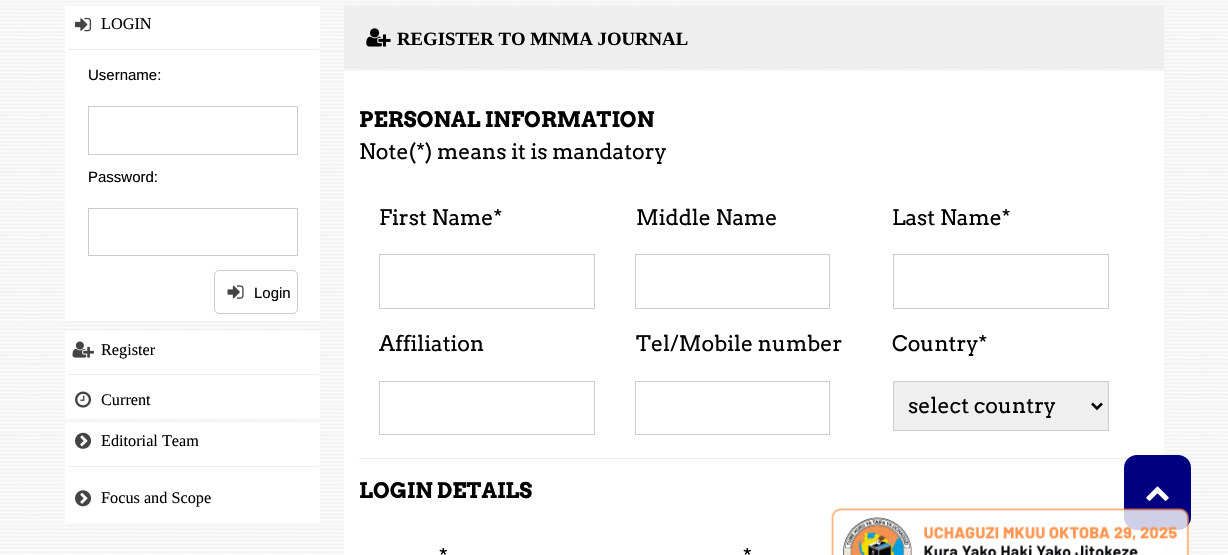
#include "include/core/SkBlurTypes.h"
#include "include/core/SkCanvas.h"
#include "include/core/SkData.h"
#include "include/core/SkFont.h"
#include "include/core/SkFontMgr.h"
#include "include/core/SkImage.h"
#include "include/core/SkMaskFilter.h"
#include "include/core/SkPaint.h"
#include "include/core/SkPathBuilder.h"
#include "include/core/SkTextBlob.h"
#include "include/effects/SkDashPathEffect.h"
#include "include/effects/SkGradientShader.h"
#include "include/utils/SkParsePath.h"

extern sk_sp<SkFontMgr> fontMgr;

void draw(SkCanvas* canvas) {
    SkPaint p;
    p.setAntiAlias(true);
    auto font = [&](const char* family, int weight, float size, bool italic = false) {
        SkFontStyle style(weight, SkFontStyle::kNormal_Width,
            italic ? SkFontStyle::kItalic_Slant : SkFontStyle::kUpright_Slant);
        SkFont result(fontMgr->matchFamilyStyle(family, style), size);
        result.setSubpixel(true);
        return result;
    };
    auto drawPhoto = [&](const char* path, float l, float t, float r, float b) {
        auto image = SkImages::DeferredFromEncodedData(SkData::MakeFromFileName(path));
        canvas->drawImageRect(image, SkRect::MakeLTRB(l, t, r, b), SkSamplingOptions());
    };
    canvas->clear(0xFFFFFFFF);
    drawPhoto("media/1.png", 0, 0, 1228, 555);
    p.setColor(0xFFFFFFFF);
    canvas->drawRect(SkRect::MakeLTRB(65, 6, 320, 321), p);
    drawPhoto("media/2.png", 75, 17, 92, 32);
    auto font1 = font("Liberation Serif", 400, 16.25f);
    p.setColor(0xFF000000);
    canvas->drawString("LOGIN", 101, 29, font1, p);
    p.setColor(0xFFEEEEEE);
    canvas->drawRect(SkRect::MakeLTRB(68, 49, 318, 50), p);
    auto font2 = font("Liberation Sans", 400, 15);
    p.setColor(0xFF000000);
    canvas->drawString("Username:", 88, 80, font2, p);
    p.setStyle(SkPaint::kStroke_Style);
    p.setStrokeWidth(1);
    p.setColor(0xFFCCCCCC);
    canvas->drawRect(SkRect::MakeLTRB(88.5f, 106.5f, 297.5f, 154.5f), p);
    p.setStyle(SkPaint::kFill_Style);
    p.setColor(0xFF000000);
    canvas->drawString("Password:", 88, 182, font2, p);
    p.setStyle(SkPaint::kStroke_Style);
    p.setColor(0xFFCCCCCC);
    canvas->drawRect(SkRect::MakeLTRB(88.5f, 208.5f, 297.5f, 255.5f), p);
    canvas->drawRoundRect(SkRect::MakeLTRB(214.5f, 270.5f, 297.5f, 313.5f), 4.5f, 4.5f, p);
    drawPhoto("media/3.png", 227, 285, 244, 299);
    p.setStyle(SkPaint::kFill_Style);
    p.setColor(0xFF000000);
    canvas->drawString("Login", 254, 298, font2, p);
    p.setColor(0xFFFFFFFF);
    canvas->drawRect(SkRect::MakeLTRB(65, 331, 320, 418), p);
    drawPhoto("media/4.png", 72, 341, 94, 358);
    p.setColor(0xFF000000);
    canvas->drawString("Register", 101, 355, font1, p);
    p.setColor(0xFFEEEEEE);
    canvas->drawRect(SkRect::MakeLTRB(68, 374, 318, 375), p);
    drawPhoto("media/5.png", 75, 391, 92, 408);
    p.setColor(0xFF000000);
    canvas->drawString("Current", 101, 405, font1, p);
    p.setColor(0xFFFFFFFF);
    canvas->drawRect(SkRect::MakeLTRB(65, 423, 320, 523), p);
    drawPhoto("media/6.png", 75, 432, 92, 449);
    p.setColor(0xFF000000);
    canvas->drawString("Editorial Team", 101, 446, font1, p);
    p.setColor(0xFFEEEEEE);
    canvas->drawRect(SkRect::MakeLTRB(68, 466, 318, 467), p);
    drawPhoto("media/7.png", 75, 490, 92, 507);
    p.setColor(0xFF000000);
    canvas->drawString("Focus and Scope", 101, 503, font1, p);
    p.setColor(0xFFEEEEEE);
    canvas->drawRect(SkRect::MakeLTRB(344, 6, 1164, 69), p);
    drawPhoto("media/8.png", 366, 28, 391, 47);
    auto font3 = font("Liberation Serif", 700, 18.75f);
    p.setColor(0xFF000000);
    canvas->drawString("REGISTER TO MNMA JOURNAL", 397, 45, font3, p);
    p.setColor(0xFFFFFFFF);
    canvas->drawRect(SkRect::MakeLTRB(344, 71, 1164, 555), p);
    auto font4 = font("Arvo", 700, 21.25f);
    p.setColor(0xFF000000);
    canvas->drawString("PERSONAL INFORMATION", 359, 127, font4, p);
    auto font5 = font("Arvo", 400, 21.25f);
    canvas->drawString("Note(*) means it is mandatory", 359, 159, font5, p);
    canvas->drawString("First Name*", 379, 225, font5, p);
    p.setStyle(SkPaint::kStroke_Style);
    p.setColor(0xFFCCCCCC);
    canvas->drawRect(SkRect::MakeLTRB(379.5f, 254.5f, 594.5f, 308.5f), p);
    p.setStyle(SkPaint::kFill_Style);
    p.setColor(0xFF000000);
    canvas->drawString("Middle Name", 636, 225, font5, p);
    p.setStyle(SkPaint::kStroke_Style);
    p.setColor(0xFFCCCCCC);
    canvas->drawRect(SkRect::MakeLTRB(635.5f, 254.5f, 829.5f, 308.5f), p);
    p.setStyle(SkPaint::kFill_Style);
    p.setColor(0xFF000000);
    canvas->drawString("Last Name*", 892, 225, font5, p);
    p.setStyle(SkPaint::kStroke_Style);
    p.setColor(0xFFCCCCCC);
    canvas->drawRect(SkRect::MakeLTRB(893.5f, 254.5f, 1108.5f, 308.5f), p);
    p.setStyle(SkPaint::kFill_Style);
    p.setColor(0xFF000000);
    canvas->drawString("Affiliation", 379, 351, font5, p);
    p.setStyle(SkPaint::kStroke_Style);
    p.setColor(0xFFCCCCCC);
    canvas->drawRect(SkRect::MakeLTRB(379.5f, 381.5f, 594.5f, 434.5f), p);
    p.setStyle(SkPaint::kFill_Style);
    p.setColor(0xFF000000);
    canvas->drawString("Tel/Mobile number", 636, 351, font5, p);
    p.setStyle(SkPaint::kStroke_Style);
    p.setColor(0xFFCCCCCC);
    canvas->drawRect(SkRect::MakeLTRB(635.5f, 381.5f, 829.5f, 434.5f), p);
    p.setStyle(SkPaint::kFill_Style);
    p.setColor(0xFF000000);
    canvas->drawString("Country*", 892, 351, font5, p);
    p.setColor(0xFFEFEFEF);
    canvas->drawRect(SkRect::MakeLTRB(893.5f, 381.5f, 1108.5f, 430.5f), p);
    p.setStyle(SkPaint::kStroke_Style);
    p.setColor(0xFFCCCCCC);
    canvas->drawRect(SkRect::MakeLTRB(893.5f, 381.5f, 1108.5f, 430.5f), p);
    p.setStrokeWidth(2.5f);
    p.setColor(0xFF000000);
    canvas->drawPath(SkPathBuilder().moveTo(1092, 403.5f).lineTo(1097, 408.5f).lineTo(1102, 403.5f).detach(), p);
    p.setStyle(SkPaint::kFill_Style);
    canvas->drawString("select country", 908, 413, font5, p);
    p.setColor(0xFFEEEEEE);
    canvas->drawRect(SkRect::MakeLTRB(359, 458, 1129, 459), p);
    p.setColor(0xFF000000);
    canvas->drawString("LOGIN DETAILS", 359, 498, font4, p);
    canvas->drawString("*", 439, 564, font5, p);
    canvas->drawString("*", 743, 564, font5, p);
    p.setColor(0xFF000080);
    canvas->drawRoundRect(SkRect::MakeLTRB(1124, 455, 1191, 530), 13, 13, p);
    drawPhoto("media/9.png", 1146, 486, 1169, 501);
    drawPhoto("media/10.png", 831, 508, 1189, 555);
}
